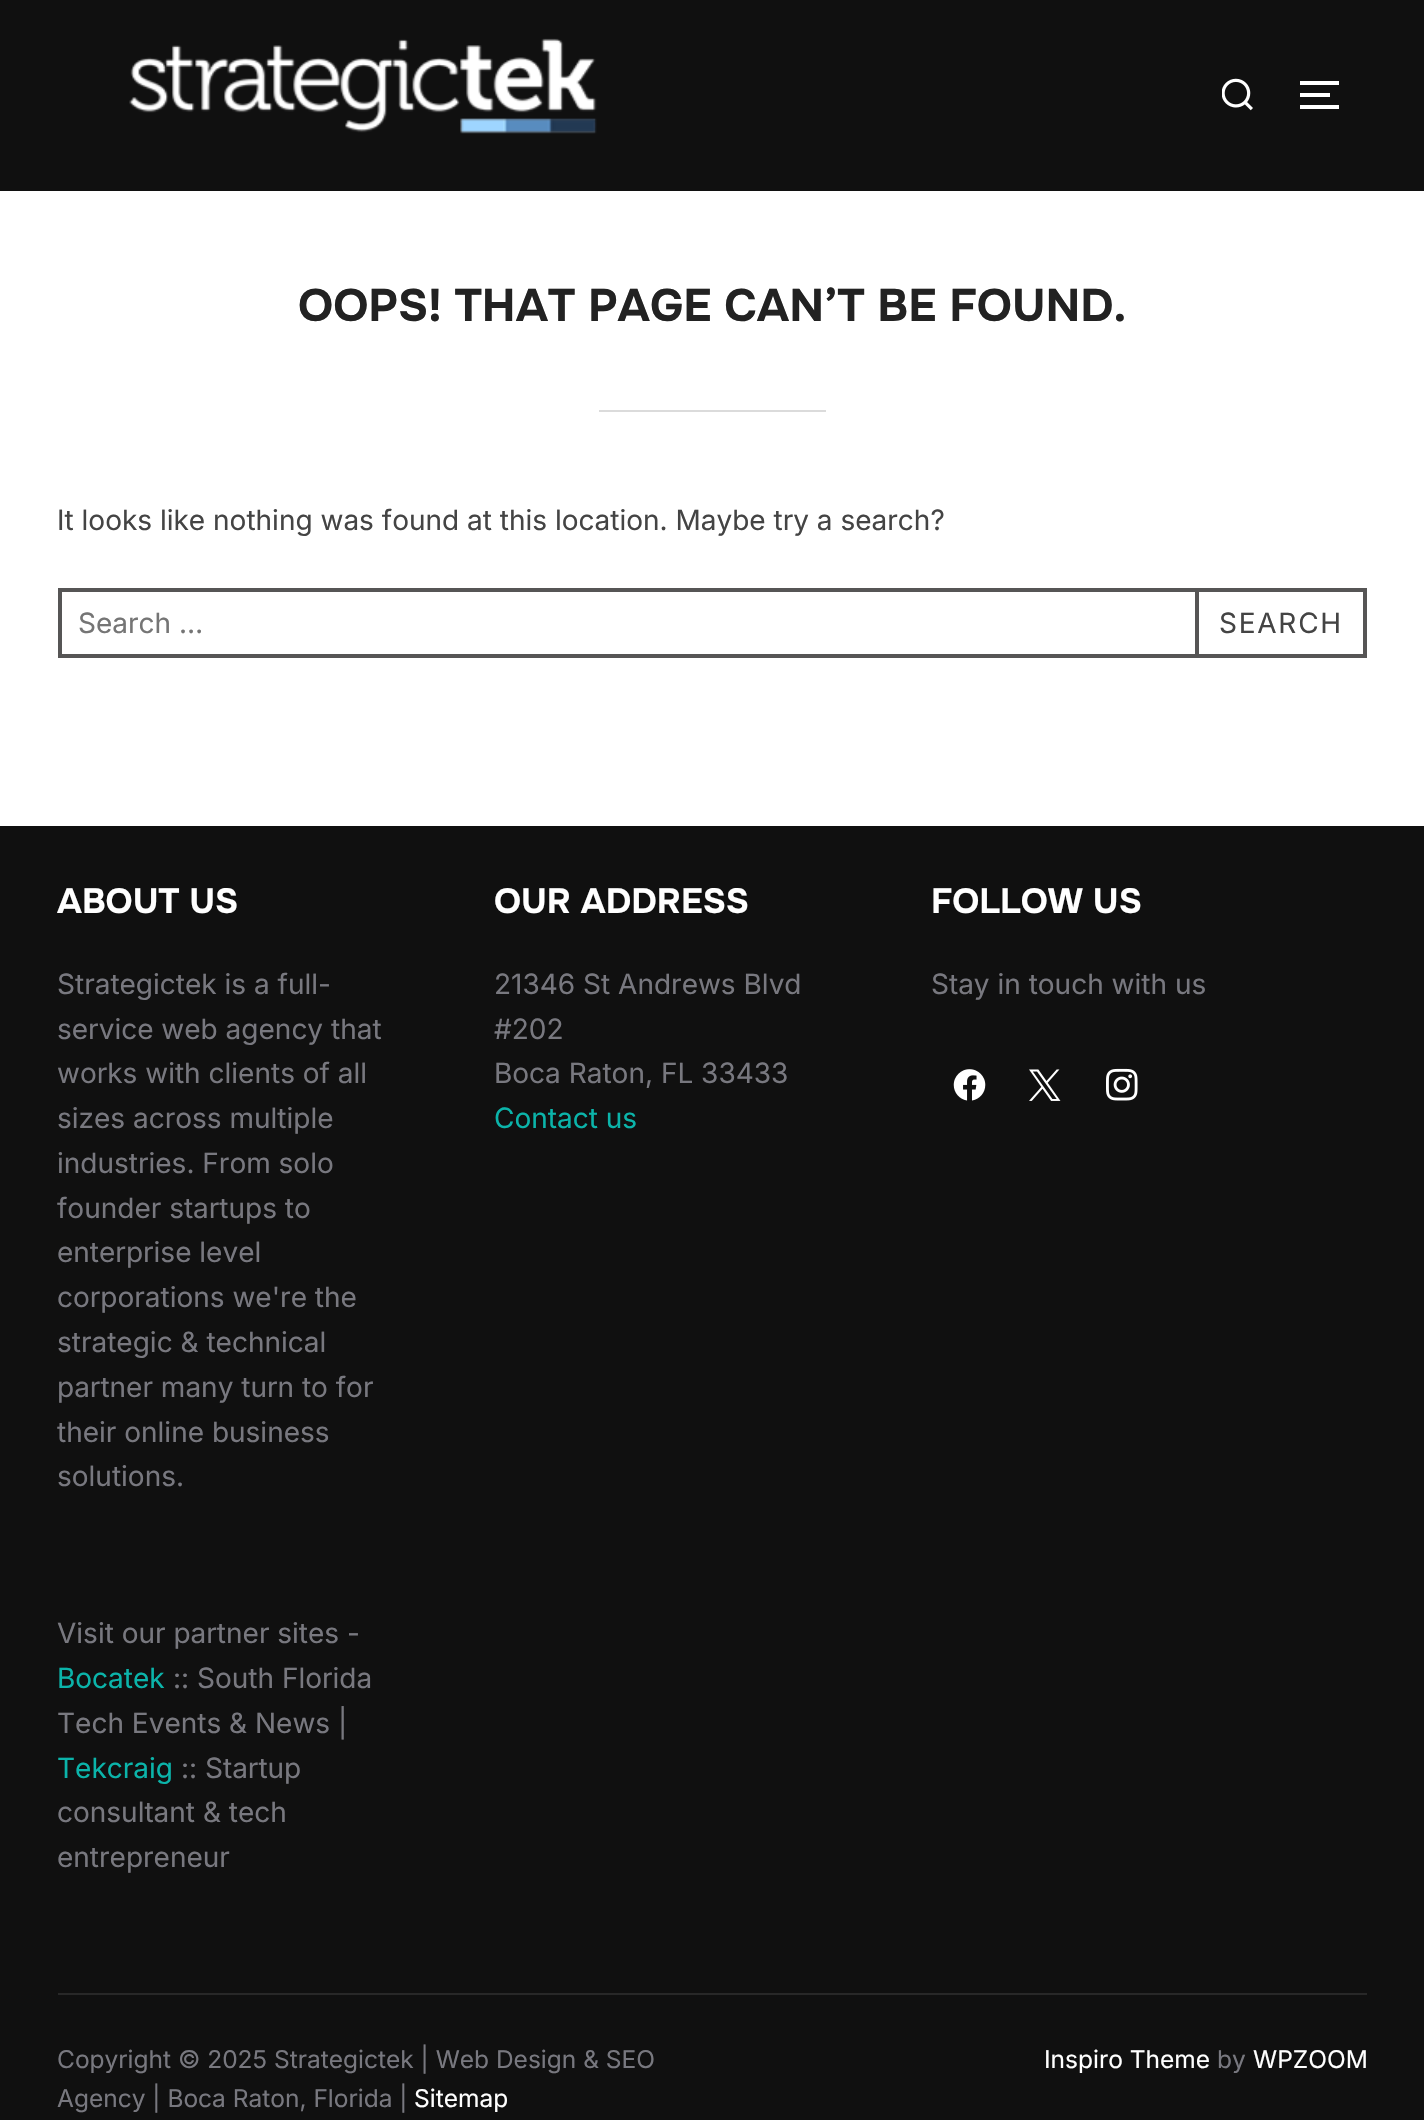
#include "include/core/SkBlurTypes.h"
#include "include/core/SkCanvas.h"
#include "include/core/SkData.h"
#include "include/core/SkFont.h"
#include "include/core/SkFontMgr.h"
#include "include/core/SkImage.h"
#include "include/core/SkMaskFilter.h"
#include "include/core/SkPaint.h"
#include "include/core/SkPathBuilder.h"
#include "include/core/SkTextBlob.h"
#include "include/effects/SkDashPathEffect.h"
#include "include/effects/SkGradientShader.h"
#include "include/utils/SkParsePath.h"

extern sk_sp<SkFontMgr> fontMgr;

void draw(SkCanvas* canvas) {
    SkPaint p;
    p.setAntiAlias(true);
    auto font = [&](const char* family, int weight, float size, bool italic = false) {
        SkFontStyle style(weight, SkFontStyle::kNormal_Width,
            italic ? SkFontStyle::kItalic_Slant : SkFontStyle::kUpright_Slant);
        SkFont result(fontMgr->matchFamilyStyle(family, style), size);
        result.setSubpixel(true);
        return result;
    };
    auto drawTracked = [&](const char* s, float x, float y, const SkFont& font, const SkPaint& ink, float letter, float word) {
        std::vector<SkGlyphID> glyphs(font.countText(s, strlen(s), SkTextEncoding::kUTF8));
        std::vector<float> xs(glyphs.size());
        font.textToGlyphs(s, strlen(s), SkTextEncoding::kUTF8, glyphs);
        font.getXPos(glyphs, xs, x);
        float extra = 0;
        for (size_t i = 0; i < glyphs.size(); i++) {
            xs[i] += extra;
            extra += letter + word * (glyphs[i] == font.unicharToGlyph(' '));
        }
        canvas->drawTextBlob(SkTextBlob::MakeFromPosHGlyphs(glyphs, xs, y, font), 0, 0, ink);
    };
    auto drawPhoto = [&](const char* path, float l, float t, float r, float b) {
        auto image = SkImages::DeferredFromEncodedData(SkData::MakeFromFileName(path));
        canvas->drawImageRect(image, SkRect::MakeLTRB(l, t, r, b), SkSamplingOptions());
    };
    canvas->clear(0xFFFFFFFF);
    p.setColor(0xFF101010);
    canvas->drawRect(SkRect::MakeLTRB(0, 0, 1424, 191), p);
    drawPhoto("media/1.png", 129, 38, 597, 134);
    drawPhoto("media/2.png", 1222, 78, 1253, 111);
    {
        const struct { float l, t, r, b; SkColor color; } items[] = {
            {1300, 81, 1339, 85, 0xFFFFFFFF},
            {1300, 93, 1330, 97, 0xFFFFFFFF},
            {1300, 105, 1339, 109, 0xFFFFFFFF},
        };
        for (auto [l, t, r, b, color] : items) {
            p.setColor(color);
            canvas->drawRect(SkRect::MakeLTRB(l, t, r, b), p);
        }
    }
    auto font1 = font("Onest", 700, 45.5f);
    p.setColor(0xFF222222);
    canvas->drawString("OOPS! THAT PAGE CAN’T BE FOUND.", 298, 321, font1, p);
    p.setColor(0xFFDBDBDB);
    canvas->drawRect(SkRect::MakeLTRB(599, 410, 826, 412), p);
    auto font2 = font("Inter", 400, 28);
    p.setColor(0xFF444444);
    canvas->drawString("It looks like nothing was found at this location. Maybe try a search?", 57, 530, font2, p);
    p.setStyle(SkPaint::kStroke_Style);
    p.setStrokeWidth(4);
    p.setColor(0xFF565555);
    canvas->drawRect(SkRect::MakeLTRB(60, 590, 1365, 656), p);
    p.setStyle(SkPaint::kFill_Style);
    p.setColor(0xFF757575);
    canvas->drawString("Search …", 78, 633, font2, p);
    p.setStyle(SkPaint::kStroke_Style);
    p.setColor(0xFF565555);
    canvas->drawRect(SkRect::MakeLTRB(1197, 590, 1365, 656), p);
    p.setStyle(SkPaint::kFill_Style);
    p.setColor(0xFF444444);
    drawTracked("SEARCH", 1219, 633, font2, p, 1.75f, 0);
    p.setColor(0xFF101010);
    canvas->drawRect(SkRect::MakeLTRB(0, 826, 1424, 2120), p);
    auto font3 = font("Onest", 700, 35);
    p.setColor(0xFFFFFFFF);
    canvas->drawString("ABOUT US", 57, 913, font3, p);
    p.setColor(0xFF78787F);
    {
        const struct { const char* s; float x, y; } items[] = {
            {"Strategictek is a full-", 57, 994},
            {"service web agency that", 57, 1039},
            {"works with clients of all", 57, 1083},
            {"sizes across multiple", 57, 1128},
            {"industries. From solo", 57, 1173},
            {"founder startups to", 57, 1218},
            {"enterprise level", 57, 1262},
            {"corporations we're the", 57, 1307},
            {"strategic & technical", 57, 1352},
            {"partner many turn to for", 57, 1397},
            {"their online business", 57, 1442},
            {"solutions.", 57, 1486},
            {"Visit our partner sites -", 57, 1643},
        };
        for (auto [s, x, y] : items) {
            canvas->drawString(s, x, y, font2, p);
        }
    }
    p.setColor(0xFF0BB4AA);
    canvas->drawString("Bocatek", 57, 1688, font2, p);
    p.setColor(0xFF78787F);
    canvas->drawString(":: South Florida", 173, 1688, font2, p);
    canvas->drawString("Tech Events & News |", 57, 1733, font2, p);
    p.setColor(0xFF0BB4AA);
    canvas->drawString("Tekcraig", 57, 1778, font2, p);
    p.setColor(0xFF78787F);
    {
        const struct { const char* s; float x, y; } items[] = {
            {":: Startup", 181, 1778},
            {"consultant & tech", 57, 1822},
            {"entrepreneur", 57, 1867},
        };
        for (auto [s, x, y] : items) {
            canvas->drawString(s, x, y, font2, p);
        }
    }
    p.setColor(0xFFFFFFFF);
    canvas->drawString("OUR ADDRESS", 494, 913, font3, p);
    p.setColor(0xFF78787F);
    {
        const struct { const char* s; float x, y; } items[] = {
            {"21346 St Andrews Blvd", 494, 994},
            {"#202", 494, 1039},
            {"Boca Raton, FL 33433", 494, 1083},
        };
        for (auto [s, x, y] : items) {
            canvas->drawString(s, x, y, font2, p);
        }
    }
    p.setColor(0xFF0BB4AA);
    canvas->drawString("Contact us", 494, 1128, font2, p);
    p.setColor(0xFFFFFFFF);
    canvas->drawString("FOLLOW US", 931, 913, font3, p);
    p.setColor(0xFF78787F);
    canvas->drawString("Stay in touch with us", 931, 994, font2, p);
    drawPhoto("media/3.png", 953, 1069, 986, 1101);
    drawPhoto("media/4.png", 1029, 1069, 1061, 1101);
    drawPhoto("media/5.png", 1106, 1068, 1138, 1101);
    p.setColor(0xFF282828);
    canvas->drawRect(SkRect::MakeLTRB(58, 1993, 1367, 1995), p);
    auto font4 = font("Inter", 400, 24.5f);
    p.setColor(0xFF78787F);
    canvas->drawString("Copyright © 2025 Strategictek | Web Design & SEO", 57, 2068, font4, p);
    canvas->drawString("Agency | Boca Raton, Florida |", 57, 2107, font4, p);
    p.setColor(0xFFFFFFFF);
    canvas->drawString("Sitemap", 414, 2107, font4, p);
    canvas->drawString("Inspiro Theme", 1044, 2068, font4, p);
    p.setColor(0xFF78787F);
    canvas->drawString("by", 1217, 2068, font4, p);
    p.setColor(0xFFFFFFFF);
    canvas->drawString("WPZOOM", 1253, 2068, font4, p);
}
